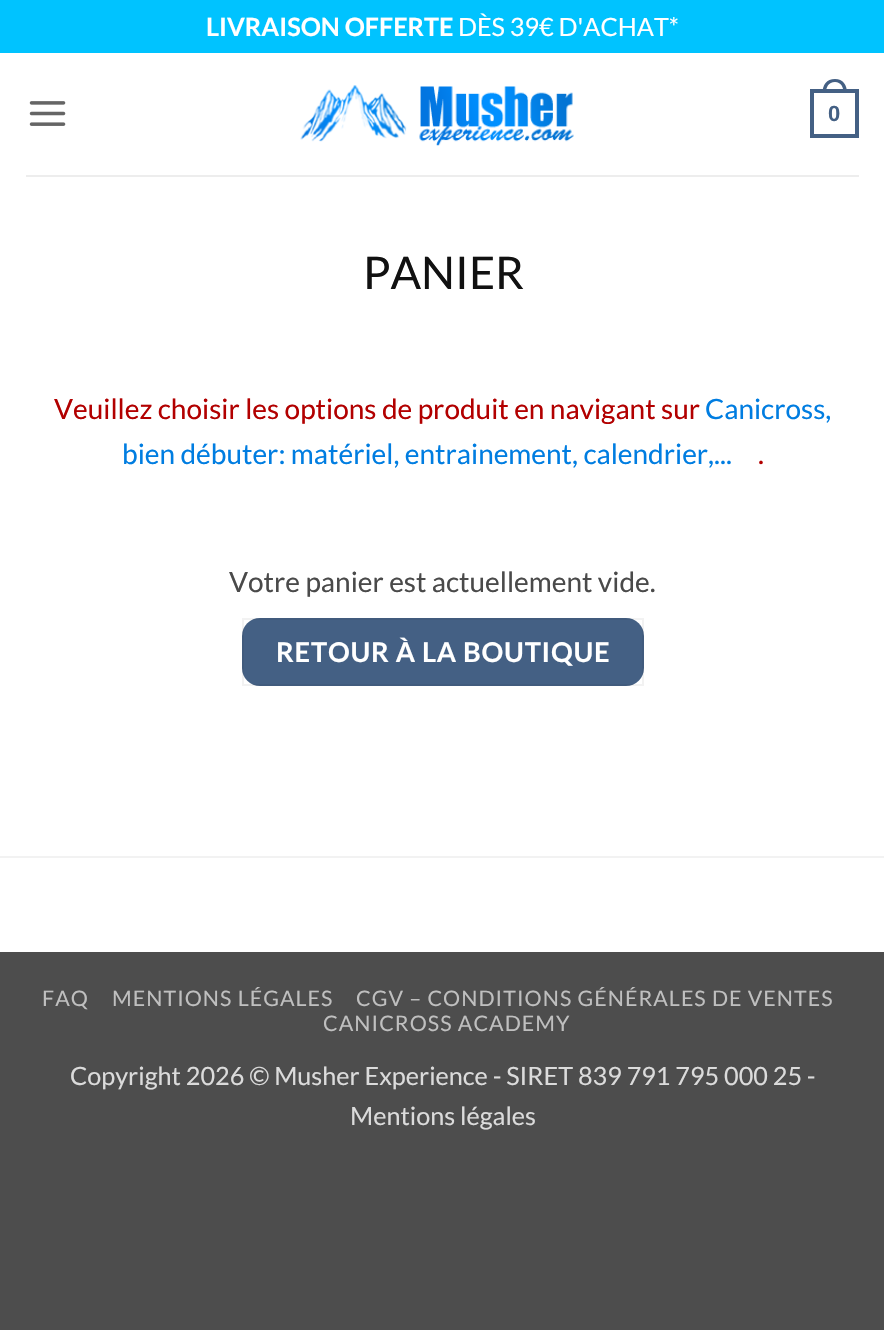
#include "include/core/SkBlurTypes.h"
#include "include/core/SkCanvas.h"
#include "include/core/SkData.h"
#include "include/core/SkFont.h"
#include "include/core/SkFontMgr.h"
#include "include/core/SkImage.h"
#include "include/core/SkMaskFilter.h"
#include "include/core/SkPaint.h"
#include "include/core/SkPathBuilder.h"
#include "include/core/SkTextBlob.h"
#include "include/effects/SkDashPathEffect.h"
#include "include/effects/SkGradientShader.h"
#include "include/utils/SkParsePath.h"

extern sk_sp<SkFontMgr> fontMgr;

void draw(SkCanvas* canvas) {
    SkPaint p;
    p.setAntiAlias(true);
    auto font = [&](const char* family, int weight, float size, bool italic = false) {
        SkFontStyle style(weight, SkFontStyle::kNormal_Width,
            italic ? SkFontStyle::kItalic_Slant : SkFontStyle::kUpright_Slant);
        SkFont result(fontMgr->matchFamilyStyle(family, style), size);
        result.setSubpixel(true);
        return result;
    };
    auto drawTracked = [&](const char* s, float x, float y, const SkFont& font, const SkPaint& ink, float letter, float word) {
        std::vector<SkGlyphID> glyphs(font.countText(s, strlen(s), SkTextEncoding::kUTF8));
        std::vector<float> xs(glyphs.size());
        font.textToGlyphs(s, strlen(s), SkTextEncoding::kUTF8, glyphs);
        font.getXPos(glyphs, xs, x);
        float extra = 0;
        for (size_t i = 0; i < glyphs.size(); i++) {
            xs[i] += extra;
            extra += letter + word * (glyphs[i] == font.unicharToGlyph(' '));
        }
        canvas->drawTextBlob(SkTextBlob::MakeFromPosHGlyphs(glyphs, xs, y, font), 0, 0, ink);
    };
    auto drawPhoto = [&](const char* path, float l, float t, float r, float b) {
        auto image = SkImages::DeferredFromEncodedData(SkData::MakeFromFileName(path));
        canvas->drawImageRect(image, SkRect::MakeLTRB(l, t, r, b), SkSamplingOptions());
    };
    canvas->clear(0xFF4D4D4D);
    p.setColor(0xFFFFFFFF);
    canvas->drawRect(SkRect::MakeLTRB(0, 53, 884, 952), p);
    p.setColor(0xFF00C3FF);
    canvas->drawRect(SkRect::MakeLTRB(0, 0, 884, 53), p);
    auto font1 = font("Lato", 700, 25.2f);
    p.setColor(0xFFFFFFFF);
    canvas->drawString("LIVRAISON OFFERTE", 206, 36, font1, p);
    auto font2 = font("Lato", 400, 25.2f);
    canvas->drawString("DÈS 39€ D'ACHAT*", 458, 36, font2, p);
    drawPhoto("media/1.png", 29, 101, 66, 126);
    drawPhoto("media/2.png", 300, 85, 574, 146);
    p.setStyle(SkPaint::kStroke_Style);
    p.setStrokeWidth(4);
    p.setColor(0xFF446084);
    canvas->drawRect(SkRect::MakeLTRB(812, 91, 857, 136), p);
    p.setStyle(SkPaint::kFill_Style);
    canvas->drawPath(SkPathBuilder(SkPathFillType::kEvenOdd).moveTo(835, 79).cubicTo(843, 79, 847, 85, 847, 93).lineTo(822.5f, 93).cubicTo(822.5f, 85, 826.5f, 79, 835, 79).close().moveTo(835, 82).cubicTo(841, 82, 843.5f, 87, 843.5f, 93).lineTo(826, 93).cubicTo(826, 87, 828.5f, 82, 835, 82).close().detach(), p);
    auto font3 = font("Liberation Sans", 700, 22);
    canvas->drawString("0", 828, 121, font3, p);
    p.setColor(0xFFEDEDED);
    canvas->drawRect(SkRect::MakeLTRB(26, 175, 859, 177), p);
    auto font4 = font("Lato", 400, 45);
    p.setColor(0xFF111111);
    canvas->drawString("PANIER", 363, 289, font4, p);
    auto font5 = font("Lato", 400, 28);
    p.setColor(0xFFB20000);
    canvas->drawString("Veuillez choisir les options de produit en navigant sur", 54, 419, font5, p);
    p.setColor(0xFF007DE1);
    canvas->drawString("Canicross,", 705, 419, font5, p);
    canvas->drawString("bien débuter: matériel, entrainement, calendrier,...", 122, 464, font5, p);
    p.setColor(0xFFB20000);
    canvas->drawString(".", 758, 464, font5, p);
    p.setColor(0xFF4A4A4A);
    canvas->drawString("Votre panier est actuellement vide.", 229, 592, font5, p);
    p.setColor(0xFF446084);
    canvas->drawRoundRect(SkRect::MakeLTRB(242, 618, 644, 686), 18, 18, p);
    p.setStyle(SkPaint::kStroke_Style);
    p.setStrokeWidth(2);
    p.setColor(0x0D000000);
    canvas->drawRect(SkRect::MakeLTRB(243, 619, 643, 685), p);
    auto font6 = font("Lato", 700, 27.2f);
    p.setStyle(SkPaint::kFill_Style);
    p.setColor(0xFFFFFFFF);
    drawTracked("RETOUR À LA BOUTIQUE", 276, 662, font6, p, 0.8f, 0);
    p.setColor(0xFFF2F2F2);
    canvas->drawRect(SkRect::MakeLTRB(0, 856, 884, 858), p);
    auto font7 = font("Lato", 400, 21.4f);
    p.setColor(0xFFBFBFBF);
    {
        const struct { const char* s; float x, y; } items[] = {
            {"FAQ", 42, 1006},
            {"MENTIONS LÉGALES", 112, 1006},
            {"CGV – CONDITIONS GÉNÉRALES DE VENTES", 356, 1006},
            {"CANICROSS ACADEMY", 323, 1031},
        };
        for (auto [s, x, y] : items) {
            drawTracked(s, x, y, font7, p, 1.05f, 0);
        }
    }
    p.setColor(0xFFDBDBDB);
    canvas->drawString("Copyright 2026 © Musher Experience - SIRET 839 791 795 000 25 -", 70, 1085, font2, p);
    canvas->drawString("Mentions légales", 350, 1125, font2, p);
}
